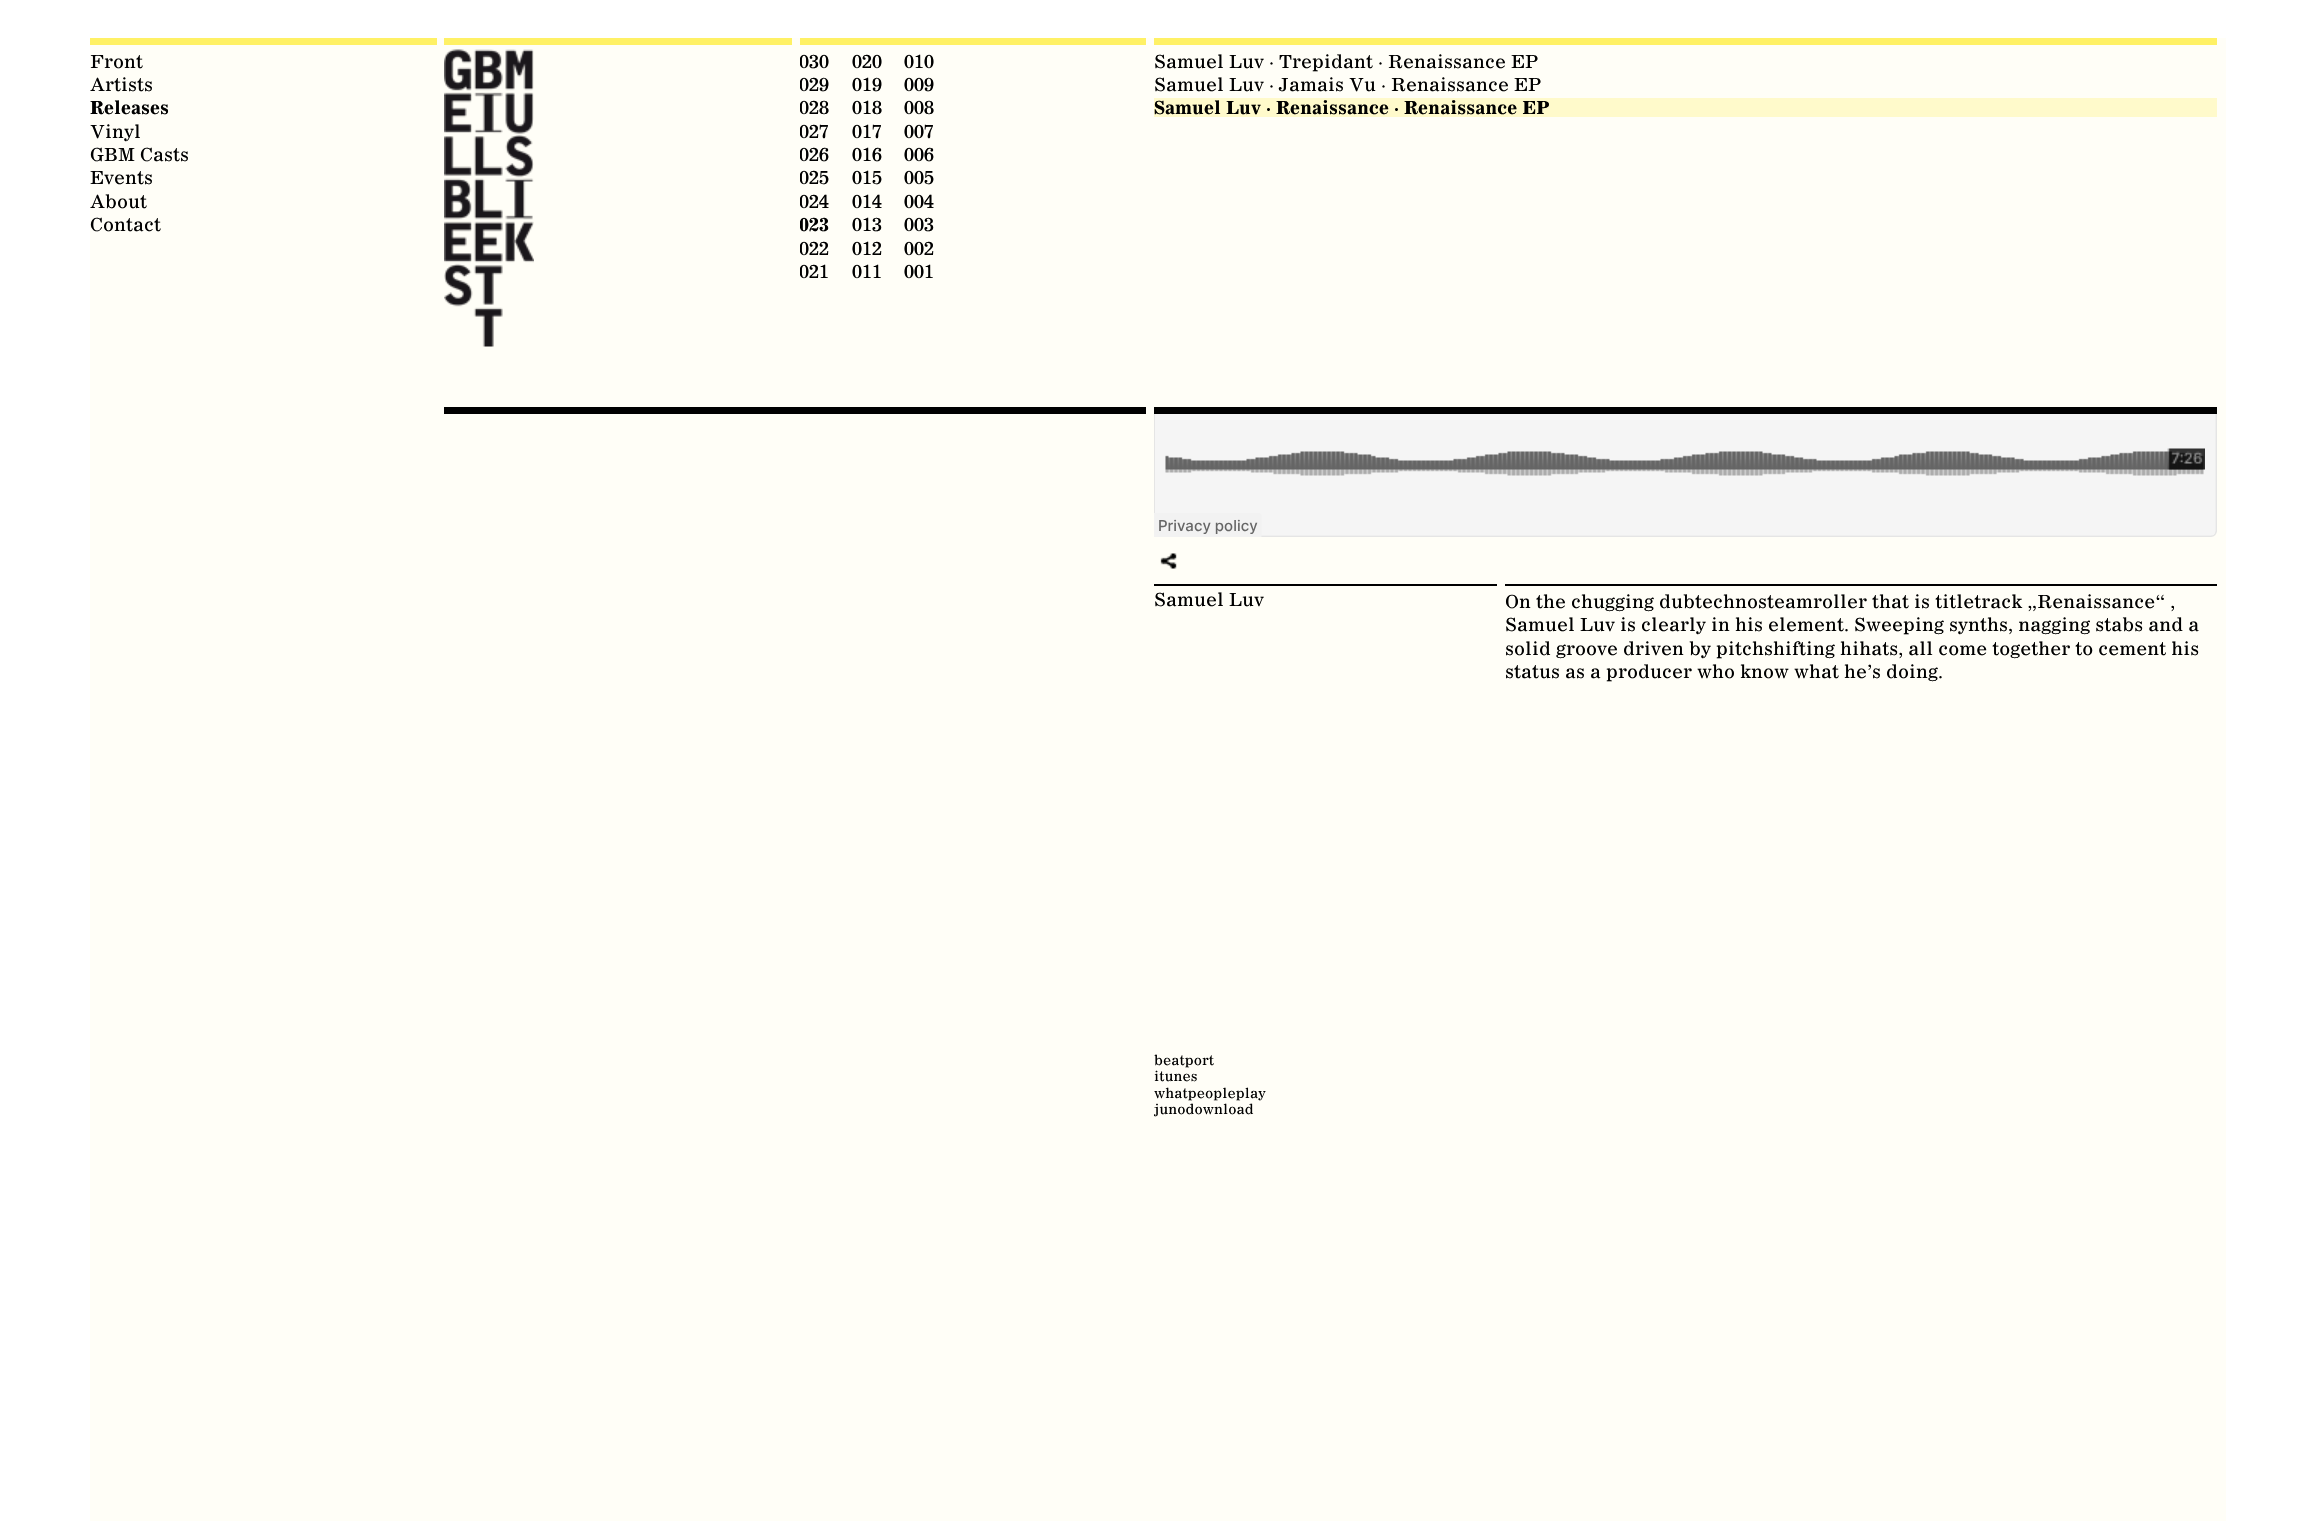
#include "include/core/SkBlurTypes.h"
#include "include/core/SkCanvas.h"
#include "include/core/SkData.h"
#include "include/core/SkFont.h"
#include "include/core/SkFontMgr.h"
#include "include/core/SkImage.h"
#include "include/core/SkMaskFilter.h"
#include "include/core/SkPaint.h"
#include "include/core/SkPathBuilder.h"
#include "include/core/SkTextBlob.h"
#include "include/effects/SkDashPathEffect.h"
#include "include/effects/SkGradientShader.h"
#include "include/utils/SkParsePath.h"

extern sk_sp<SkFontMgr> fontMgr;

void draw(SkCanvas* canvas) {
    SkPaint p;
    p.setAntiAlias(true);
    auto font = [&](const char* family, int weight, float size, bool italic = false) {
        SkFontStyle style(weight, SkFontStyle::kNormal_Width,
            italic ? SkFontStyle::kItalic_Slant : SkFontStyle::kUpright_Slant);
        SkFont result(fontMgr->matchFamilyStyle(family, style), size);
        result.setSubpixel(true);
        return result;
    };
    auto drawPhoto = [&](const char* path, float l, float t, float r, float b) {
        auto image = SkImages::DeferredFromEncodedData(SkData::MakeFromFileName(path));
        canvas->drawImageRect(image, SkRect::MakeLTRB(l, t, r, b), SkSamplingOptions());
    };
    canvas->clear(0xFFFFFFFF);
    p.setColor(0xFFFFFEF7);
    canvas->drawRect(SkRect::MakeLTRB(90, 38, 2226, 1521), p);
    p.setColor(0xFFFFF165);
    canvas->drawRect(SkRect::MakeLTRB(90, 38, 437, 45), p);
    auto font1 = font("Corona", 500, 18);
    p.setColor(0xFF000000);
    canvas->drawString("Front", 90, 68, font1, p);
    canvas->drawString("Artists", 90, 91, font1, p);
    auto font2 = font("Corona", 700, 18);
    canvas->drawString("Releases", 90, 114, font2, p);
    {
        const struct { const char* s; float x, y; } items[] = {
            {"Vinyl", 90, 138},
            {"GBM Casts", 90, 161},
            {"Events", 90, 184},
            {"About", 90, 208},
            {"Contact", 90, 231},
        };
        for (auto [s, x, y] : items) {
            canvas->drawString(s, x, y, font1, p);
        }
    }
    p.setColor(0xFFFFF165);
    canvas->drawRect(SkRect::MakeLTRB(444, 38, 792, 45), p);
    drawPhoto("media/1.png", 444, 49, 534, 347);
    canvas->drawRect(SkRect::MakeLTRB(800, 38, 1146, 45), p);
    canvas->save();
    canvas->clipRect(SkRect::MakeLTRB(800, 45, 1146, 284));
    p.setColor(0xFF000000);
    {
        const struct { const char* s; float x, y; } items[] = {
            {"030", 799, 68},
            {"029", 799, 91},
            {"028", 799, 114},
            {"027", 799, 138},
            {"026", 799, 161},
            {"025", 799, 184},
            {"024", 799, 208},
        };
        for (auto [s, x, y] : items) {
            canvas->drawString(s, x, y, font1, p);
        }
    }
    canvas->drawString("023", 799, 231, font2, p);
    canvas->drawString("022", 799, 255, font1, p);
    canvas->drawString("021", 799, 278, font1, p);
    canvas->restore();
    {
        const struct { const char* s; float x, y; } items[] = {
            {"020", 852, 68},
            {"019", 852, 91},
            {"018", 852, 114},
            {"017", 852, 138},
            {"016", 852, 161},
            {"015", 852, 184},
            {"014", 852, 208},
            {"013", 852, 231},
            {"012", 852, 255},
            {"011", 852, 278},
            {"010", 904, 68},
            {"009", 904, 91},
            {"008", 904, 114},
            {"007", 904, 138},
            {"006", 904, 161},
            {"005", 904, 184},
            {"004", 904, 208},
            {"003", 904, 231},
            {"002", 904, 255},
            {"001", 904, 278},
        };
        for (auto [s, x, y] : items) {
            canvas->drawString(s, x, y, font1, p);
        }
    }
    p.setColor(0xFFFFF165);
    canvas->drawRect(SkRect::MakeLTRB(1154, 38, 2217, 45), p);
    p.setColor(0xFF000000);
    canvas->drawString("Samuel Luv · Trepidant · Renaissance EP", 1154, 68, font1, p);
    canvas->drawString("Samuel Luv · Jamais Vu · Renaissance EP", 1154, 91, font1, p);
    p.setColor(0xFFFFFACB);
    canvas->drawRect(SkRect::MakeLTRB(1154, 98, 2217, 117), p);
    p.setColor(0xFF000000);
    canvas->drawString("Samuel Luv · Renaissance · Renaissance EP", 1154, 114, font2, p);
    canvas->drawRect(SkRect::MakeLTRB(1154, 407, 2217, 414), p);
    drawPhoto("media/2.png", 1154, 414, 2217, 537);
    drawPhoto("media/3.png", 1160, 553, 1177, 569);
    canvas->drawRect(SkRect::MakeLTRB(1154, 584, 1497, 586), p);
    canvas->drawString("Samuel Luv", 1154, 606, font1, p);
    canvas->drawRect(SkRect::MakeLTRB(1505, 584, 2217, 586), p);
    {
        const struct { const char* s; float x, y; } items[] = {
            {"On the chugging dubtechnosteamroller that is titletrack „Renaissance“ ,", 1505, 608},
            {"Samuel Luv is clearly in his element. Sweeping synths, nagging stabs and a", 1505, 631},
            {"solid groove driven by pitchshifting hihats, all come together to cement his", 1505, 655},
            {"status as a producer who know what he’s doing.", 1505, 678},
        };
        for (auto [s, x, y] : items) {
            canvas->drawString(s, x, y, font1, p);
        }
    }
    canvas->drawRect(SkRect::MakeLTRB(444, 407, 1146, 414), p);
    auto font3 = font("Corona", 500, 13.5f);
    {
        const struct { const char* s; float x, y; } items[] = {
            {"beatport", 1154, 1065},
            {"itunes", 1154, 1081},
            {"whatpeopleplay", 1154, 1098},
            {"junodownload", 1154, 1114},
        };
        for (auto [s, x, y] : items) {
            canvas->drawString(s, x, y, font3, p);
        }
    }
}
